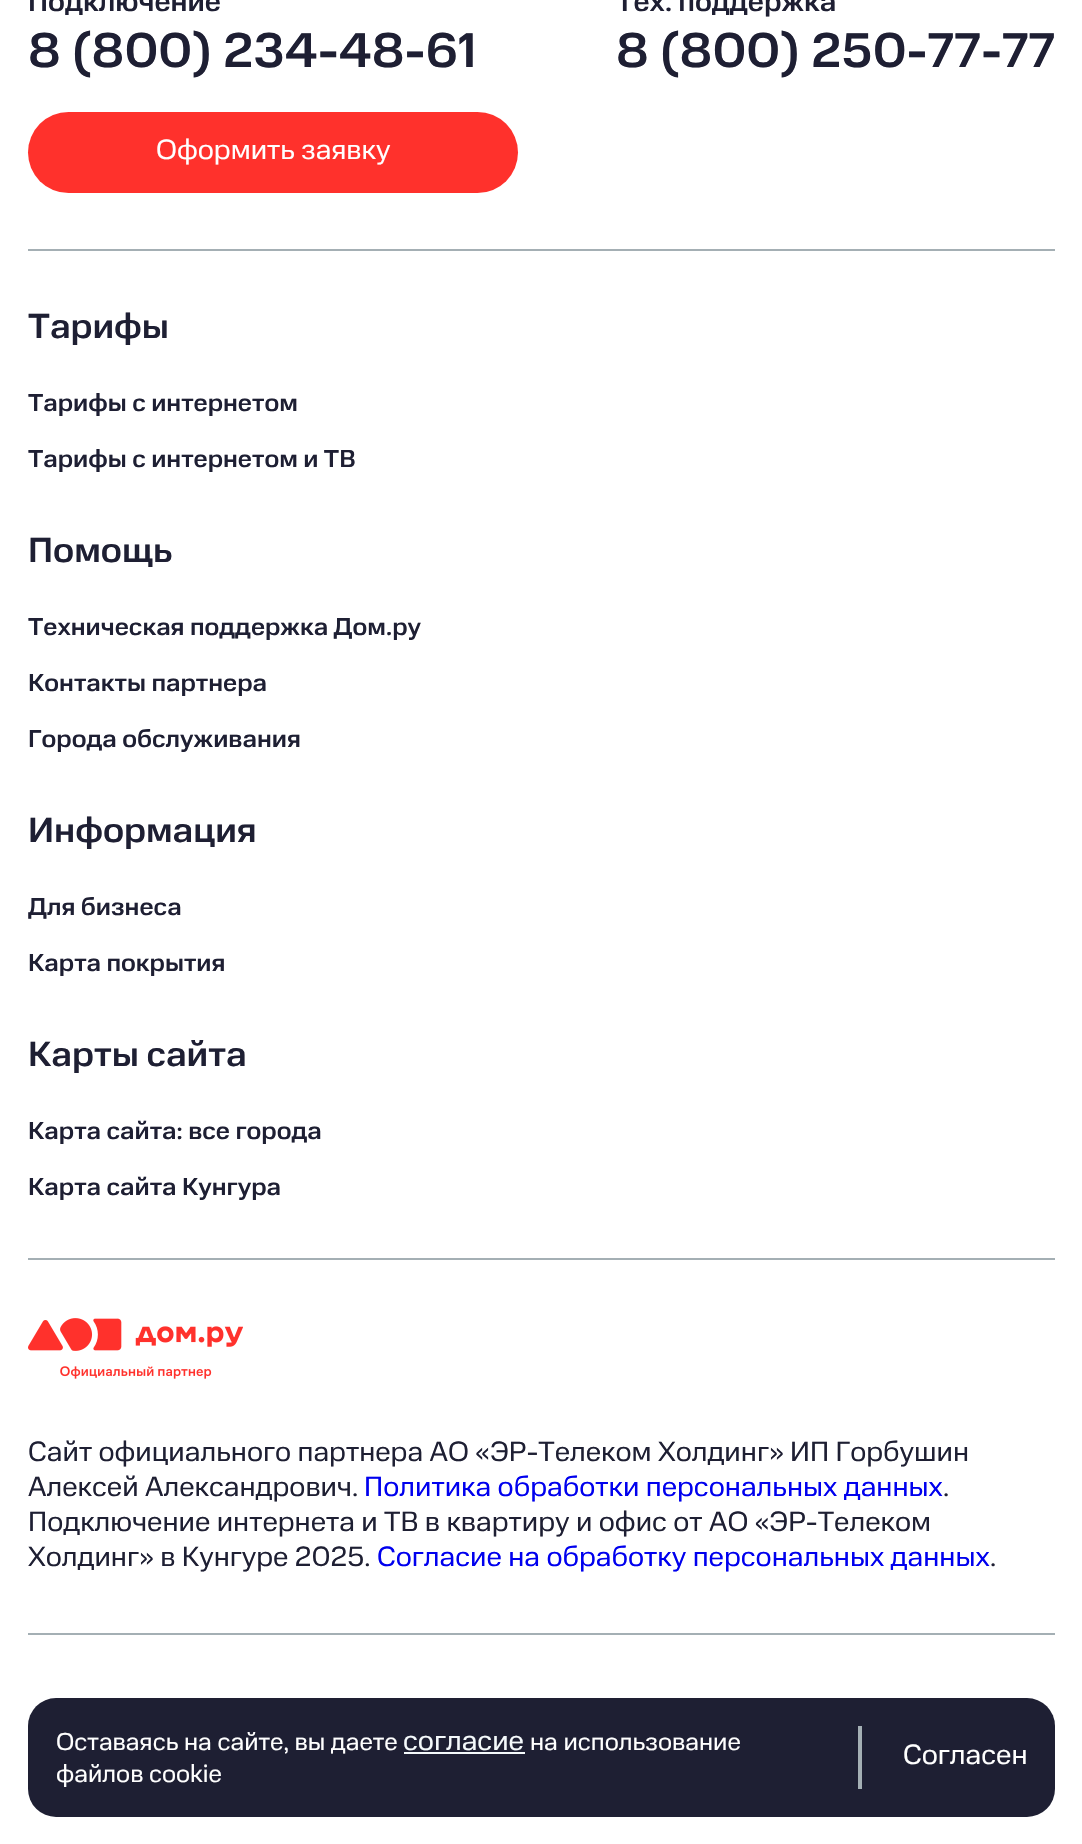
#include "include/core/SkBlurTypes.h"
#include "include/core/SkCanvas.h"
#include "include/core/SkData.h"
#include "include/core/SkFont.h"
#include "include/core/SkFontMgr.h"
#include "include/core/SkImage.h"
#include "include/core/SkMaskFilter.h"
#include "include/core/SkPaint.h"
#include "include/core/SkPathBuilder.h"
#include "include/core/SkTextBlob.h"
#include "include/effects/SkDashPathEffect.h"
#include "include/effects/SkGradientShader.h"
#include "include/utils/SkParsePath.h"

extern sk_sp<SkFontMgr> fontMgr;

void draw(SkCanvas* canvas) {
    SkPaint p;
    p.setAntiAlias(true);
    auto font = [&](const char* family, int weight, float size, bool italic = false) {
        SkFontStyle style(weight, SkFontStyle::kNormal_Width,
            italic ? SkFontStyle::kItalic_Slant : SkFontStyle::kUpright_Slant);
        SkFont result(fontMgr->matchFamilyStyle(family, style), size);
        result.setSubpixel(true);
        return result;
    };
    auto drawPhoto = [&](const char* path, float l, float t, float r, float b) {
        auto image = SkImages::DeferredFromEncodedData(SkData::MakeFromFileName(path));
        canvas->drawImageRect(image, SkRect::MakeLTRB(l, t, r, b), SkSamplingOptions());
    };
    canvas->clear(0xFFFFFFFF);
    p.setColor(0xFFA4AFB4);
    canvas->drawRect(SkRect::MakeLTRB(28, 249, 1055, 251), p);
    auto font1 = font("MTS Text", 500, 28);
    p.setColor(0xFF1E1F33);
    canvas->drawString("Подключение", 28, 11, font1, p);
    auto font2 = font("MTS Text", 500, 49);
    canvas->drawString("8 (800) 234-48-61", 28, 67, font2, p);
    canvas->drawString("Тех. поддержка", 616, 11, font1, p);
    canvas->drawString("8 (800) 250-77-77", 616, 67, font2, p);
    p.setColor(0xFFFF312C);
    canvas->drawRoundRect(SkRect::MakeLTRB(28, 112, 518, 193), 40.5f, 40.5f, p);
    auto font3 = font("MTS Text", 400, 28);
    p.setColor(0xFFFFFFFF);
    canvas->drawString("Оформить заявку", 156, 159, font3, p);
    p.setColor(0xFFA4AFB4);
    canvas->drawRect(SkRect::MakeLTRB(28, 1258, 1055, 1260), p);
    auto font4 = font("MTS Text", 500, 35);
    p.setColor(0xFF1E1F33);
    canvas->drawString("Тарифы", 28, 338, font4, p);
    auto font5 = font("MTS Text", 500, 24.5f);
    canvas->drawString("Тарифы с интернетом", 28, 411, font5, p);
    canvas->drawString("Тарифы с интернетом и ТВ", 28, 467, font5, p);
    canvas->drawString("Помощь", 28, 562, font4, p);
    {
        const struct { const char* s; float x, y; } items[] = {
            {"Техническая поддержка Дом.ру", 28, 635},
            {"Контакты партнера", 28, 691},
            {"Города обслуживания", 28, 747},
        };
        for (auto [s, x, y] : items) {
            canvas->drawString(s, x, y, font5, p);
        }
    }
    canvas->drawString("Информация", 28, 842, font4, p);
    canvas->drawString("Для бизнеса", 28, 915, font5, p);
    canvas->drawString("Карта покрытия", 28, 971, font5, p);
    canvas->drawString("Карты сайта", 28, 1066, font4, p);
    canvas->drawString("Карта сайта: все города", 28, 1139, font5, p);
    canvas->drawString("Карта сайта Кунгура", 28, 1195, font5, p);
    p.setColor(0xFFA4AFB4);
    canvas->drawRect(SkRect::MakeLTRB(28, 1633, 1055, 1635), p);
    drawPhoto("media/1.png", 28, 1318, 243, 1379);
    p.setColor(0xFF1E1F33);
    canvas->drawString("Сайт официального партнера АО «ЭР-Телеком Холдинг» ИП Горбушин", 28, 1461, font3, p);
    canvas->drawString("Алексей Александрович.", 28, 1496, font3, p);
    p.setColor(0xFF0000EE);
    canvas->drawString("Политика обработки персональных данных", 364, 1496, font3, p);
    p.setColor(0xFF1E1F33);
    {
        const struct { const char* s; float x, y; } items[] = {
            {".", 943, 1496},
            {"Подключение интернета и ТВ в квартиру и офис от АО «ЭР-Телеком", 28, 1531},
            {"Холдинг» в Кунгуре 2025.", 28, 1566},
        };
        for (auto [s, x, y] : items) {
            canvas->drawString(s, x, y, font3, p);
        }
    }
    p.setColor(0xFF0000EE);
    canvas->drawString("Согласие на обработку персональных данных", 377, 1566, font3, p);
    p.setColor(0xFF1E1F33);
    canvas->drawString(".", 990, 1566, font3, p);
    canvas->drawRoundRect(SkRect::MakeLTRB(28, 1698, 1055, 1817), 28, 28, p);
    auto font6 = font("MTS Text", 400, 24.5f);
    p.setColor(0xFFFFFFFF);
    canvas->drawString("Оставаясь на сайте, вы даете", 56, 1750, font6, p);
    p.setColor(0xFFF5FAFC);
    canvas->drawString("согласие", 403, 1750, font3, p);
    canvas->drawRect(SkRect::MakeLTRB(404, 1752, 525, 1754), p);
    p.setColor(0xFFFFFFFF);
    canvas->drawString("на использование", 530, 1750, font6, p);
    p.setColor(0xFFA4AFB4);
    canvas->drawRect(SkRect::MakeLTRB(858, 1726, 862, 1789), p);
    p.setColor(0xFFFFFFFF);
    canvas->drawString("файлов cookie", 56, 1782, font6, p);
    canvas->drawString("Согласен", 903, 1764, font3, p);
}
